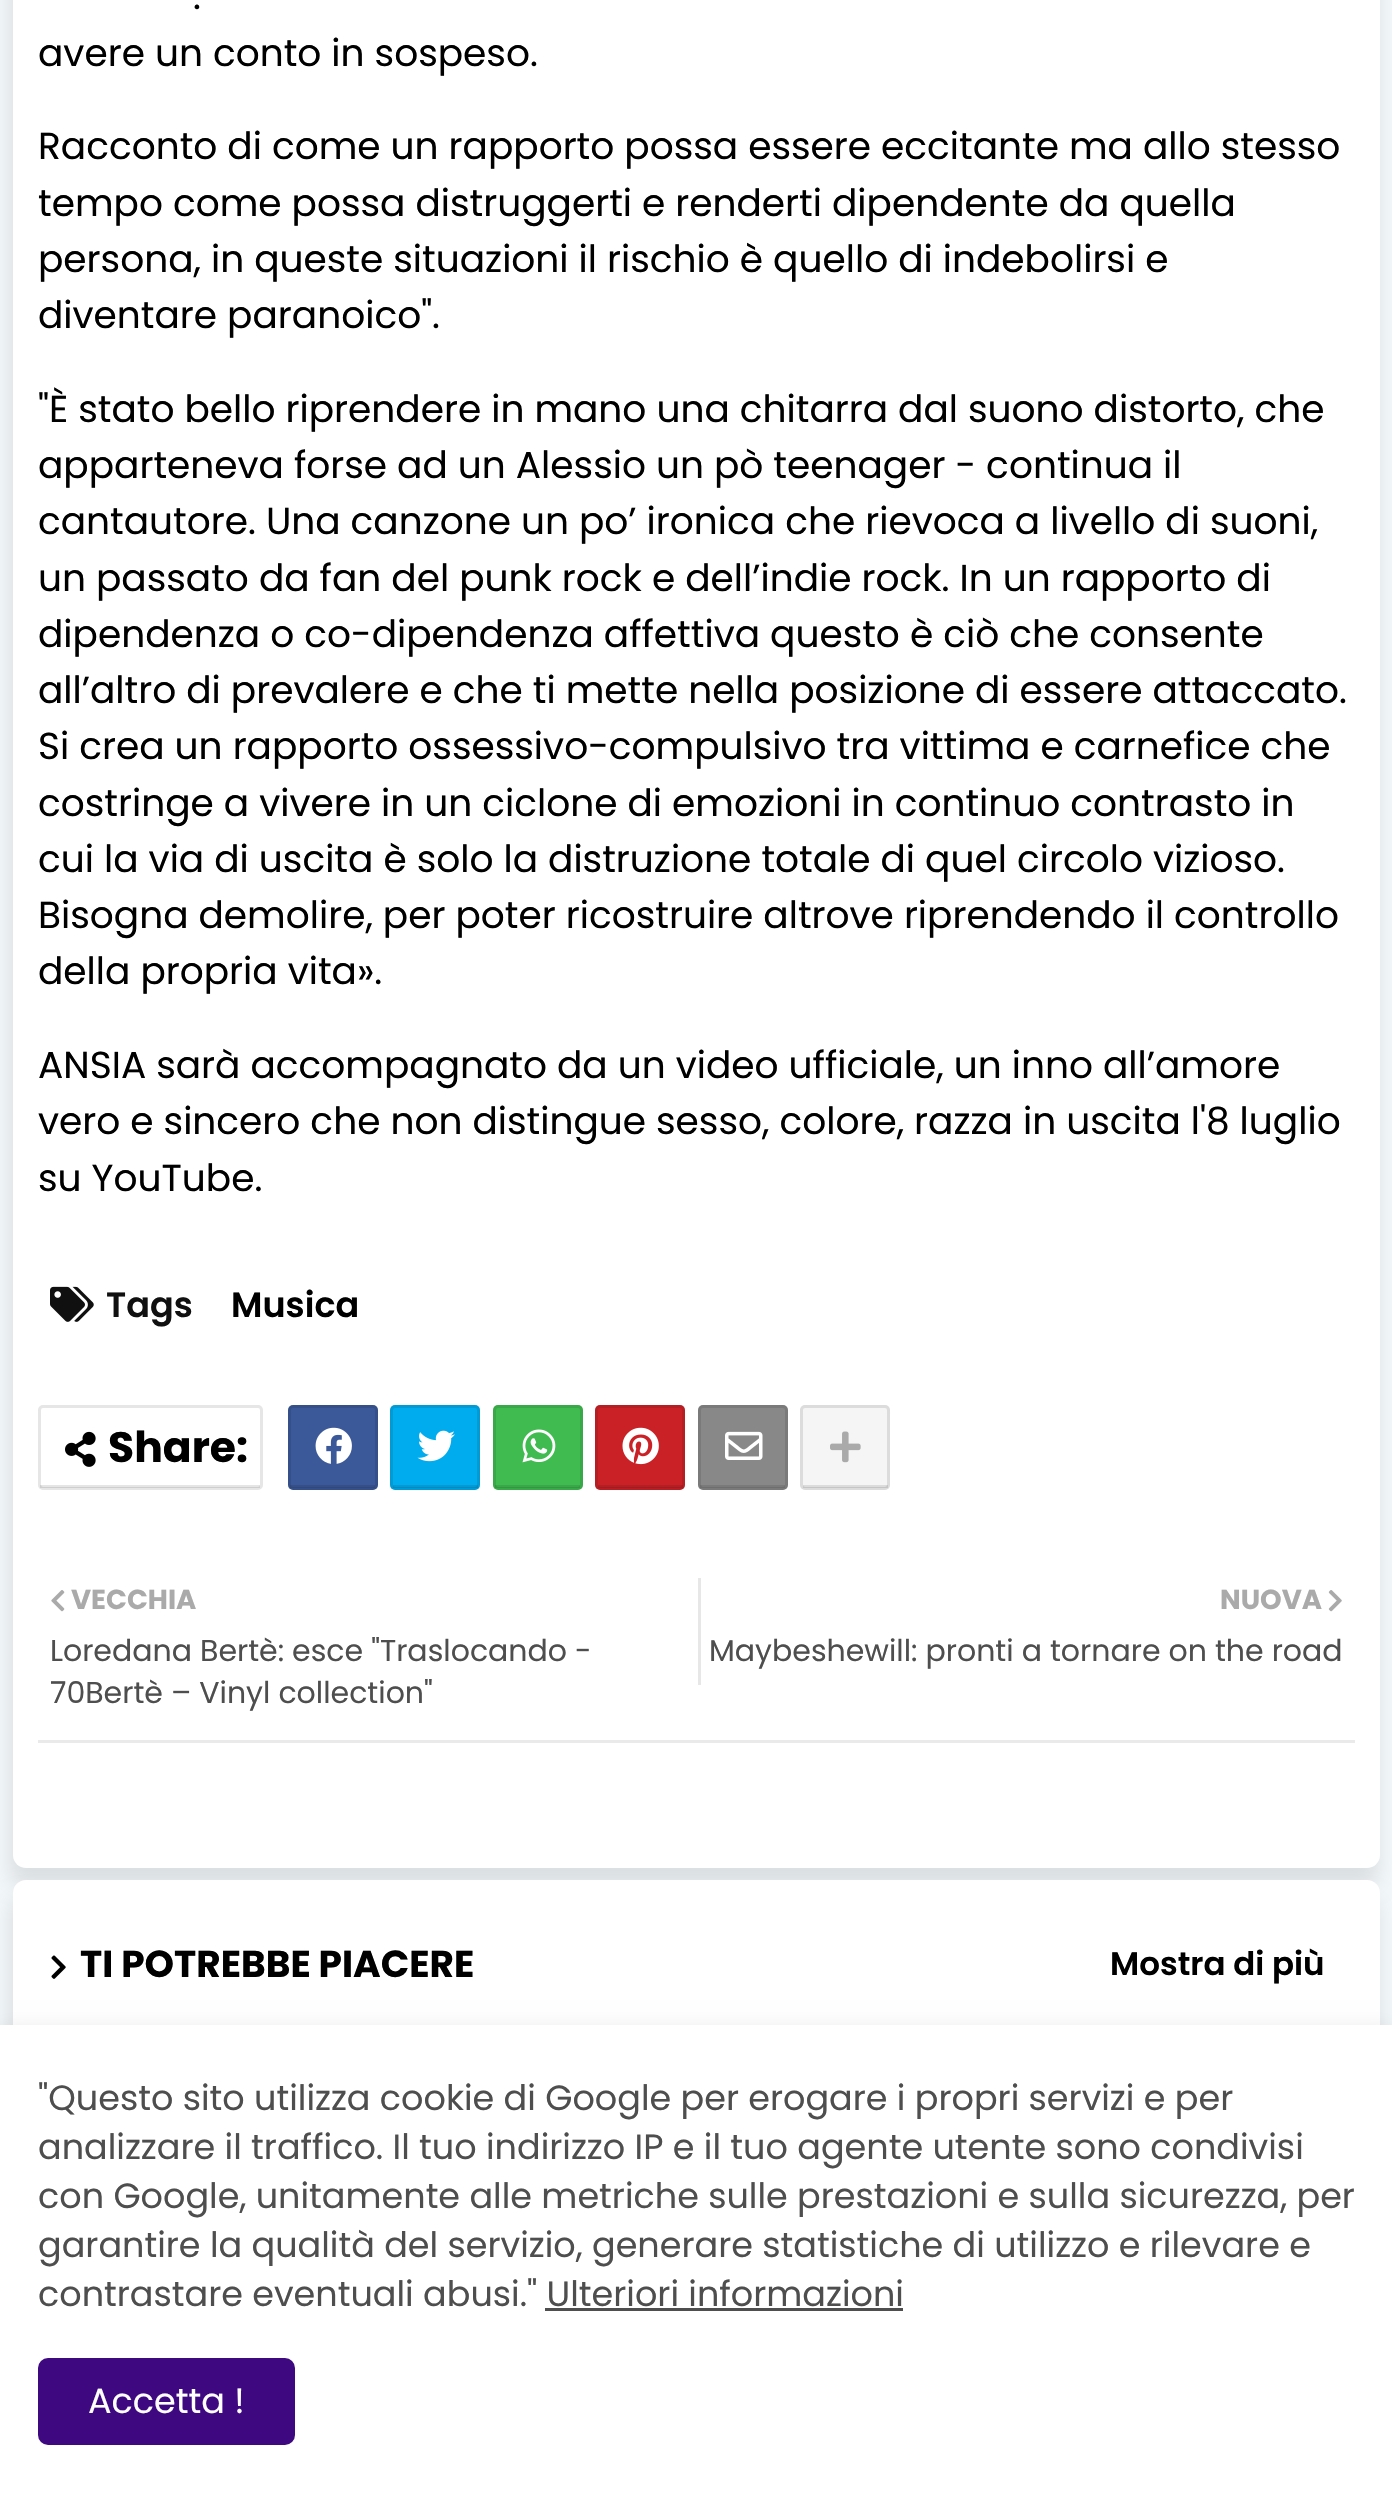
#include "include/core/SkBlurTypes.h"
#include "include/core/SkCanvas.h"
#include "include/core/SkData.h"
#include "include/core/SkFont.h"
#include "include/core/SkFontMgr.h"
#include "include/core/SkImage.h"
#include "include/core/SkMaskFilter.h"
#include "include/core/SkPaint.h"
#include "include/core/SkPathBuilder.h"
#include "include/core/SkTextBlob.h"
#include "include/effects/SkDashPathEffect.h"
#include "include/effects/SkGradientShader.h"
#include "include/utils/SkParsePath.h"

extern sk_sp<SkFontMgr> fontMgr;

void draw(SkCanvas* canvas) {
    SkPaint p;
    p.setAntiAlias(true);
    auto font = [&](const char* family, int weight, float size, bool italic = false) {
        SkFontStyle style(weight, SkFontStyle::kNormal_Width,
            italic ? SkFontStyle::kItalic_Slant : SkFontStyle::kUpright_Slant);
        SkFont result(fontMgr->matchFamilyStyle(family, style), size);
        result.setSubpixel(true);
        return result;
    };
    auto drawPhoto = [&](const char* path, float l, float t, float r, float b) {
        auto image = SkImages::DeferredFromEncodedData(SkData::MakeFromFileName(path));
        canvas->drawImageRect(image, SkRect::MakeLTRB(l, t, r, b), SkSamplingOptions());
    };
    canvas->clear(0xFFF3F8FB);
    p.setColor(0x1A000000);
    p.setMaskFilter(SkMaskFilter::MakeBlur(kNormal_SkBlurStyle, 10));
    canvas->drawRoundRect(SkRect::MakeLTRB(10, -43, 1378, 1885), 13, 13, p);
    p.setMaskFilter(nullptr);
    p.setColor(0xFFFFFFFF);
    canvas->drawRoundRect(SkRect::MakeLTRB(13, -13, 1380, 1868), 13, 13, p);
    auto font1 = font("Poppins", 400, 37.5f);
    p.setColor(0xFF000000);
    {
        const struct { const char* s; float x, y; } items[] = {
            {".", 193, 9},
            {"avere un conto in sospeso.", 38, 66},
            {"Racconto di come un rapporto possa essere eccitante ma allo stesso", 38, 159},
            {"tempo come possa distruggerti e renderti dipendente da quella", 38, 216},
            {"persona, in queste situazioni il rischio è quello di indebolirsi e", 38, 272},
            {"diventare paranoico\".", 38, 328},
            {"\"È stato bello riprendere in mano una chitarra dal suono distorto, che", 38, 422},
            {"apparteneva forse ad un Alessio un pò teenager - continua il", 38, 478},
            {"cantautore. Una canzone un po’ ironica che rievoca a livello di suoni,", 38, 534},
            {"un passato da fan del punk rock e dell’indie rock. In un rapporto di", 38, 591},
            {"dipendenza o co-dipendenza affettiva questo è ciò che consente", 38, 647},
            {"all’altro di prevalere e che ti mette nella posizione di essere attaccato.", 38, 703},
            {"Si crea un rapporto ossessivo-compulsivo tra vittima e carnefice che", 38, 759},
            {"costringe a vivere in un ciclone di emozioni in continuo contrasto in", 38, 816},
            {"cui la via di uscita è solo la distruzione totale di quel circolo vizioso.", 38, 872},
            {"Bisogna demolire, per poter ricostruire altrove riprendendo il controllo", 38, 928},
            {"della propria vita».", 38, 984},
            {"ANSIA sarà accompagnato da un video ufficiale, un inno all’amore", 38, 1078},
            {"vero e sincero che non distingue sesso, colore, razza in uscita l'8 luglio", 38, 1134},
            {"su YouTube.", 38, 1191},
        };
        for (auto [s, x, y] : items) {
            canvas->drawString(s, x, y, font1, p);
        }
    }
    drawPhoto("media/1.png", 50, 1286, 94, 1322);
    auto font2 = font("Poppins", 600, 35);
    p.setColor(0xFF101010);
    canvas->drawString("Tags", 106, 1317, font2, p);
    p.setColor(0xFF000000);
    canvas->drawString("Musica", 231, 1317, font2, p);
    p.setStyle(SkPaint::kStroke_Style);
    p.setStrokeWidth(3);
    p.setColor(0xFFE6E6E6);
    canvas->drawRoundRect(SkRect::MakeLTRB(39.5f, 1406.5f, 261.5f, 1488.5f), 3.5f, 3.5f, p);
    p.setStyle(SkPaint::kFill_Style);
    p.setColor(0x1A000000);
    canvas->drawRect(SkRect::MakeLTRB(40, 1485, 260, 1488), p);
    drawPhoto("media/2.png", 65, 1431, 96, 1467);
    auto font3 = font("Poppins", 700, 42.5f);
    p.setColor(0xFF000000);
    canvas->drawString("Share:", 108, 1462, font3, p);
    p.setColor(0xFF3B5999);
    canvas->drawRoundRect(SkRect::MakeLTRB(288, 1405, 378, 1490), 5, 5, p);
    p.setStyle(SkPaint::kStroke_Style);
    p.setColor(0x1A000000);
    canvas->drawRoundRect(SkRect::MakeLTRB(289.5f, 1406.5f, 376.5f, 1488.5f), 3.5f, 3.5f, p);
    p.setStyle(SkPaint::kFill_Style);
    canvas->drawRect(SkRect::MakeLTRB(290, 1485, 375, 1488), p);
    drawPhoto("media/3.png", 315, 1427, 352, 1464);
    p.setColor(0xFF00ACEE);
    canvas->drawRoundRect(SkRect::MakeLTRB(390, 1405, 480, 1490), 5, 5, p);
    p.setStyle(SkPaint::kStroke_Style);
    p.setColor(0x1A000000);
    canvas->drawRoundRect(SkRect::MakeLTRB(391.5f, 1406.5f, 478.5f, 1488.5f), 3.5f, 3.5f, p);
    p.setStyle(SkPaint::kFill_Style);
    canvas->drawRect(SkRect::MakeLTRB(393, 1485, 478, 1488), p);
    drawPhoto("media/4.png", 417, 1430, 455, 1462);
    p.setColor(0xFF3FBB50);
    canvas->drawRoundRect(SkRect::MakeLTRB(493, 1405, 583, 1490), 5, 5, p);
    p.setStyle(SkPaint::kStroke_Style);
    p.setColor(0x1A000000);
    canvas->drawRoundRect(SkRect::MakeLTRB(494.5f, 1406.5f, 581.5f, 1488.5f), 3.5f, 3.5f, p);
    p.setStyle(SkPaint::kFill_Style);
    canvas->drawRect(SkRect::MakeLTRB(495, 1485, 580, 1488), p);
    drawPhoto("media/5.png", 522, 1429, 556, 1463);
    p.setColor(0xFFCA2127);
    canvas->drawRoundRect(SkRect::MakeLTRB(595, 1405, 685, 1490), 5, 5, p);
    p.setStyle(SkPaint::kStroke_Style);
    p.setColor(0x1A000000);
    canvas->drawRoundRect(SkRect::MakeLTRB(596.5f, 1406.5f, 683.5f, 1488.5f), 3.5f, 3.5f, p);
    p.setStyle(SkPaint::kFill_Style);
    canvas->drawRect(SkRect::MakeLTRB(598, 1485, 683, 1488), p);
    drawPhoto("media/6.png", 622, 1427, 659, 1465);
    p.setColor(0xFF888888);
    canvas->drawRoundRect(SkRect::MakeLTRB(698, 1405, 788, 1490), 5, 5, p);
    p.setStyle(SkPaint::kStroke_Style);
    p.setColor(0x1A000000);
    canvas->drawRoundRect(SkRect::MakeLTRB(699.5f, 1406.5f, 786.5f, 1488.5f), 3.5f, 3.5f, p);
    p.setStyle(SkPaint::kFill_Style);
    canvas->drawRect(SkRect::MakeLTRB(700, 1485, 785, 1488), p);
    drawPhoto("media/7.png", 725, 1431, 763, 1460);
    p.setColor(0xFFF5F5F5);
    canvas->drawRoundRect(SkRect::MakeLTRB(800, 1405, 890, 1490), 5, 5, p);
    p.setStyle(SkPaint::kStroke_Style);
    p.setColor(0x1A000000);
    canvas->drawRoundRect(SkRect::MakeLTRB(801.5f, 1406.5f, 888.5f, 1488.5f), 3.5f, 3.5f, p);
    p.setStyle(SkPaint::kFill_Style);
    canvas->drawRect(SkRect::MakeLTRB(803, 1485, 888, 1488), p);
    drawPhoto("media/8.png", 830, 1431, 861, 1463);
    p.setColor(0xFFEAEAEA);
    canvas->drawRect(SkRect::MakeLTRB(38, 1740, 1355, 1743), p);
    drawPhoto("media/9.png", 51, 1590, 65, 1612);
    auto font4 = font("Poppins", 700, 27.5f);
    p.setColor(0xFFAAAAAA);
    canvas->drawString("VECCHIA", 71, 1609, font4, p);
    auto font5 = font("Poppins", 400, 30);
    p.setColor(0xFF4E4E4E);
    canvas->drawString("Loredana Bertè: esce \"Traslocando -", 50, 1661, font5, p);
    canvas->drawString("70Bertè – Vinyl collection\"", 50, 1703, font5, p);
    p.setColor(0xFFE7E7E7);
    canvas->drawRect(SkRect::MakeLTRB(698, 1578, 701, 1685), p);
    p.setColor(0xFFAAAAAA);
    canvas->drawString("NUOVA", 1220, 1609, font4, p);
    drawPhoto("media/10.png", 1328, 1590, 1342, 1612);
    p.setColor(0xFF4E4E4E);
    canvas->drawString("Maybeshewill: pronti a tornare on the road", 709, 1661, font5, p);
    p.setColor(0x1A000000);
    p.setMaskFilter(SkMaskFilter::MakeBlur(kNormal_SkBlurStyle, 10));
    canvas->drawRoundRect(SkRect::MakeLTRB(10, 1898, 1378, 2293), 13, 13, p);
    p.setMaskFilter(nullptr);
    p.setColor(0xFFFFFFFF);
    canvas->drawRoundRect(SkRect::MakeLTRB(13, 1880, 1380, 2275), 13, 13, p);
    drawPhoto("media/11.png", 51, 1955, 66, 1979);
    auto font6 = font("Poppins", 700, 37.5f);
    p.setColor(0xFF000000);
    canvas->drawString("TI POTREBBE PIACERE", 80, 1977, font6, p);
    auto font7 = font("Poppins", 600, 32.5f);
    canvas->drawString("Mostra di più", 1110, 1975, font7, p);
    p.setColor(0x1C000000);
    p.setMaskFilter(SkMaskFilter::MakeBlur(kNormal_SkBlurStyle, 10));
    canvas->drawRect(SkRect::MakeLTRB(0, 2030, 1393, 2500), p);
    p.setMaskFilter(nullptr);
    p.setColor(0xFFFFFFFF);
    canvas->drawRect(SkRect::MakeLTRB(0, 2025, 1392, 2495), p);
    auto font8 = font("Poppins", 400, 35);
    p.setColor(0xFF4E4E4E);
    {
        const struct { const char* s; float x, y; } items[] = {
            {"\"Questo sito utilizza cookie di Google per erogare i propri servizi e per", 38, 2110},
            {"analizzare il traffico. Il tuo indirizzo IP e il tuo agente utente sono condivisi", 38, 2159},
            {"con Google, unitamente alle metriche sulle prestazioni e sulla sicurezza, per", 38, 2208},
            {"garantire la qualità del servizio, generare statistiche di utilizzo e rilevare e", 38, 2257},
            {"contrastare eventuali abusi.\" Ulteriori informazioni", 38, 2306},
        };
        for (auto [s, x, y] : items) {
            canvas->drawString(s, x, y, font8, p);
        }
    }
    canvas->drawRect(SkRect::MakeLTRB(545, 2308, 903, 2311), p);
    p.setColor(0xFF3E0881);
    canvas->drawRoundRect(SkRect::MakeLTRB(38, 2358, 295, 2445), 10, 10, p);
    p.setColor(0xFFFFFFFF);
    canvas->drawString("Accetta !", 88, 2413, font8, p);
}
